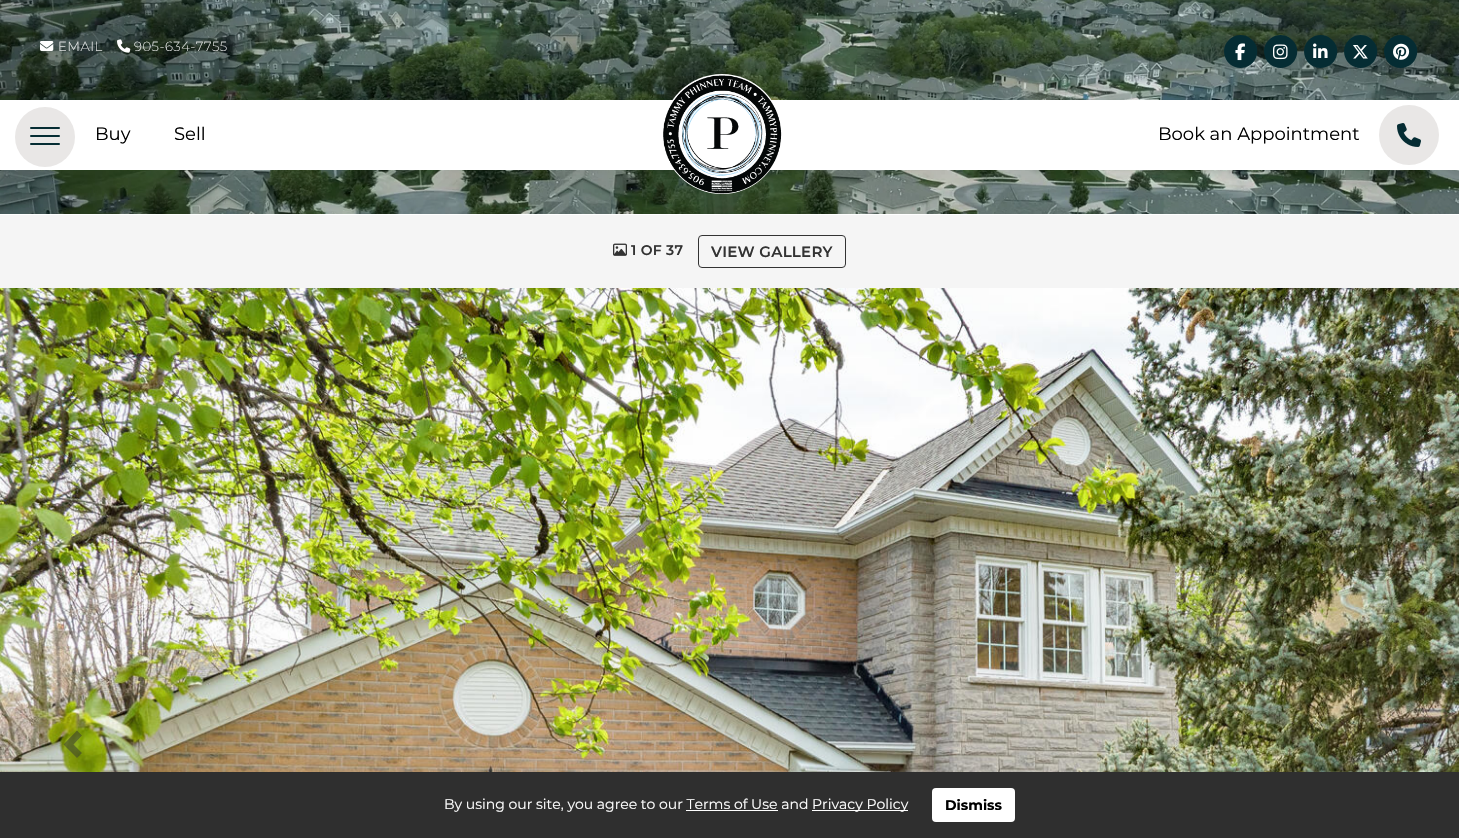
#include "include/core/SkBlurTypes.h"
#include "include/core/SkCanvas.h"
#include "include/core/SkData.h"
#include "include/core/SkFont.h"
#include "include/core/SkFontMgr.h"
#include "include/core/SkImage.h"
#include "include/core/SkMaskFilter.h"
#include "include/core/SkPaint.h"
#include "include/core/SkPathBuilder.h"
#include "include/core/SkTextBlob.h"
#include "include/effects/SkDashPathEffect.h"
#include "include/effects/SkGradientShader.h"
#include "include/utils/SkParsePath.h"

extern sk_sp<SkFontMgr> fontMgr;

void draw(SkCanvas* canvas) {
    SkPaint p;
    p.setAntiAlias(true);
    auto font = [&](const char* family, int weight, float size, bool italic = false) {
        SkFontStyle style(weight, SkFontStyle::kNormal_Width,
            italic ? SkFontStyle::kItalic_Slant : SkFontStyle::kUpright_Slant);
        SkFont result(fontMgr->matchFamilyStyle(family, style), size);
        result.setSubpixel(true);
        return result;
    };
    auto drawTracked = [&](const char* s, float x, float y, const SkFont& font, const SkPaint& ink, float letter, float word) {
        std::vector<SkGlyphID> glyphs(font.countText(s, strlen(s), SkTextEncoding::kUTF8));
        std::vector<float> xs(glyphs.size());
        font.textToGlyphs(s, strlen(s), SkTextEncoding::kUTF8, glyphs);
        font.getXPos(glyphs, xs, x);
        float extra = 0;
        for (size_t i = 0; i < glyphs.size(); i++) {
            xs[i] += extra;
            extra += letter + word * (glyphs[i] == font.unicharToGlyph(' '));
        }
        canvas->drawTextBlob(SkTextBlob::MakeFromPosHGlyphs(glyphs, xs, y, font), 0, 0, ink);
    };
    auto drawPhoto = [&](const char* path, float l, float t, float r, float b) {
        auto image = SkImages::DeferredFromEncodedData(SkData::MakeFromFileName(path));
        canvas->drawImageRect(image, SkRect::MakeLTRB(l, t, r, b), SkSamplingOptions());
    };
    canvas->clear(0xFFF5F5F5);
    drawPhoto("media/1.png", 0, 0, 1459, 214);
    drawPhoto("media/2.png", 40, 41, 54, 51);
    auto font1 = font("Montserrat", 200, 13.25f);
    p.setColor(0xFFFFFFFF);
    drawTracked("EMAIL", 58, 51, font1, p, 0.5f, 0);
    drawPhoto("media/3.png", 117, 39, 131, 53);
    drawTracked("905-634-7755", 134, 51, font1, p, 0.5f, 0);
    p.setColor(0xFF052C33);
    canvas->drawPath(SkPathBuilder().moveTo(1240.5f, 68).cubicTo(1256.5f, 68, 1263.5f, 48, 1250.5f, 38.5f).cubicTo(1248, 36, 1244, 35, 1240.5f, 35).cubicTo(1237, 35, 1233.5f, 36, 1230.5f, 38.5f).cubicTo(1218, 48, 1225, 68, 1240.5f, 68).close().detach(), p);
    drawPhoto("media/4.png", 1235, 43, 1245, 61);
    canvas->drawPath(SkPathBuilder().moveTo(1280.5f, 68).cubicTo(1296.5f, 68, 1303.5f, 48, 1290.5f, 38.5f).cubicTo(1288, 36, 1284, 35, 1280.5f, 35).cubicTo(1277, 35, 1273.5f, 36, 1270.5f, 38.5f).cubicTo(1258, 48, 1265, 68, 1280.5f, 68).close().detach(), p);
    drawPhoto("media/5.png", 1273, 44, 1288, 60);
    canvas->drawPath(SkPathBuilder().moveTo(1320.5f, 68).cubicTo(1336.5f, 68, 1343.5f, 48, 1330.5f, 38.5f).cubicTo(1328, 36, 1324, 35, 1320.5f, 35).cubicTo(1317, 35, 1313.5f, 36, 1310.5f, 38.5f).cubicTo(1298, 48, 1305, 68, 1320.5f, 68).close().detach(), p);
    drawPhoto("media/6.png", 1313, 43, 1328, 58);
    canvas->drawPath(SkPathBuilder().moveTo(1360.5f, 68).cubicTo(1376.5f, 68, 1383.5f, 48, 1370.5f, 38.5f).cubicTo(1368, 36, 1364, 35, 1360.5f, 35).cubicTo(1357, 35, 1353.5f, 36, 1350.5f, 38.5f).cubicTo(1338, 48, 1345, 68, 1360.5f, 68).close().detach(), p);
    drawPhoto("media/7.png", 1353, 45, 1368, 59);
    canvas->drawPath(SkPathBuilder().moveTo(1400.5f, 68).cubicTo(1416.5f, 68, 1423.5f, 48, 1410.5f, 38.5f).cubicTo(1408, 36, 1404, 35, 1400.5f, 35).cubicTo(1397, 35, 1393.5f, 36, 1390.5f, 38.5f).cubicTo(1378, 48, 1385, 68, 1400.5f, 68).close().detach(), p);
    drawPhoto("media/8.png", 1393, 43, 1410, 60);
    p.setColor(0xFFFFFFFF);
    canvas->drawRect(SkRect::MakeLTRB(0, 100, 1459, 170), p);
    canvas->drawCircle(722, 134, 60, p);
    drawPhoto("media/9.png", 663, 75, 782, 194);
    p.setColor(0xFFE9E7E6);
    canvas->drawCircle(45, 137, 30, p);
    p.setColor(0xFF052C33);
    canvas->drawRoundRect(SkRect::MakeLTRB(30, 127, 60, 129), 1, 1, p);
    canvas->drawRoundRect(SkRect::MakeLTRB(30, 135, 60, 137), 1, 1, p);
    canvas->drawRoundRect(SkRect::MakeLTRB(30, 143, 60, 145), 1, 1, p);
    auto font2 = font("Montserrat", 400, 18);
    p.setColor(0xFF000000);
    {
        const struct { const char* s; float x, y; } items[] = {
            {"Buy", 95, 140},
            {"Sell", 174, 140},
            {"Book an Appointment", 1158, 140},
        };
        for (auto [s, x, y] : items) {
            canvas->drawString(s, x, y, font2, p);
        }
    }
    p.setColor(0xFFE9E7E6);
    canvas->drawCircle(1409, 135, 30, p);
    drawPhoto("media/10.png", 1397, 123, 1421, 147);
    p.setColor(0xFFFFFFFF);
    canvas->drawRect(SkRect::MakeLTRB(0, 214, 1459, 215), p);
    drawPhoto("media/11.png", 613, 243, 627, 256);
    auto font3 = font("Montserrat", 600, 14);
    p.setColor(0xFF333333);
    drawTracked("1 OF 37", 631, 255, font3, p, 0.25f, 0);
    p.setStyle(SkPaint::kStroke_Style);
    p.setStrokeWidth(1);
    canvas->drawRoundRect(SkRect::MakeLTRB(698.5f, 235.5f, 845.5f, 267.5f), 3.5f, 3.5f, p);
    auto font4 = font("Montserrat", 600, 15);
    p.setStyle(SkPaint::kFill_Style);
    drawTracked("VIEW GALLERY", 711, 257, font4, p, 0.25f, 0);
    drawPhoto("media/12.png", 0, 288, 1459, 772);
    p.setColor(0x80333333);
    canvas->drawPath(SkPathBuilder().moveTo(82, 735.5f).lineTo(73.5f, 744.5f).lineTo(82, 753).lineTo(77, 758).lineTo(63.5f, 744.5f).lineTo(77, 730.5f).close().detach(), p);
    canvas->drawPath(SkPathBuilder().moveTo(1395.5f, 744.5f).lineTo(1382, 758).lineTo(1377, 753).lineTo(1385.5f, 744.5f).lineTo(1377, 735.5f).lineTo(1382, 730.5f).close().detach(), p);
    p.setColor(0xFF2F2F2F);
    canvas->drawRect(SkRect::MakeLTRB(0, 772, 1459, 838), p);
    auto font5 = font("Montserrat", 400, 14);
    p.setColor(0xFFFFFFFF);
    canvas->drawString("By using our site, you agree to our Terms of Use and", 444, 809, font5, p);
    canvas->drawRect(SkRect::MakeLTRB(812, 810, 908, 811), p);
    canvas->drawString("Privacy Policy", 812, 809, font5, p);
    canvas->drawRoundRect(SkRect::MakeLTRB(932, 788, 1015, 822), 4, 4, p);
    auto font6 = font("Montserrat", 700, 14);
    p.setColor(0xFF000000);
    canvas->drawString("Dismiss", 945, 810, font6, p);
    p.setColor(0xFFFFFFFF);
    canvas->drawRect(SkRect::MakeLTRB(686, 810, 778, 811), p);
}
